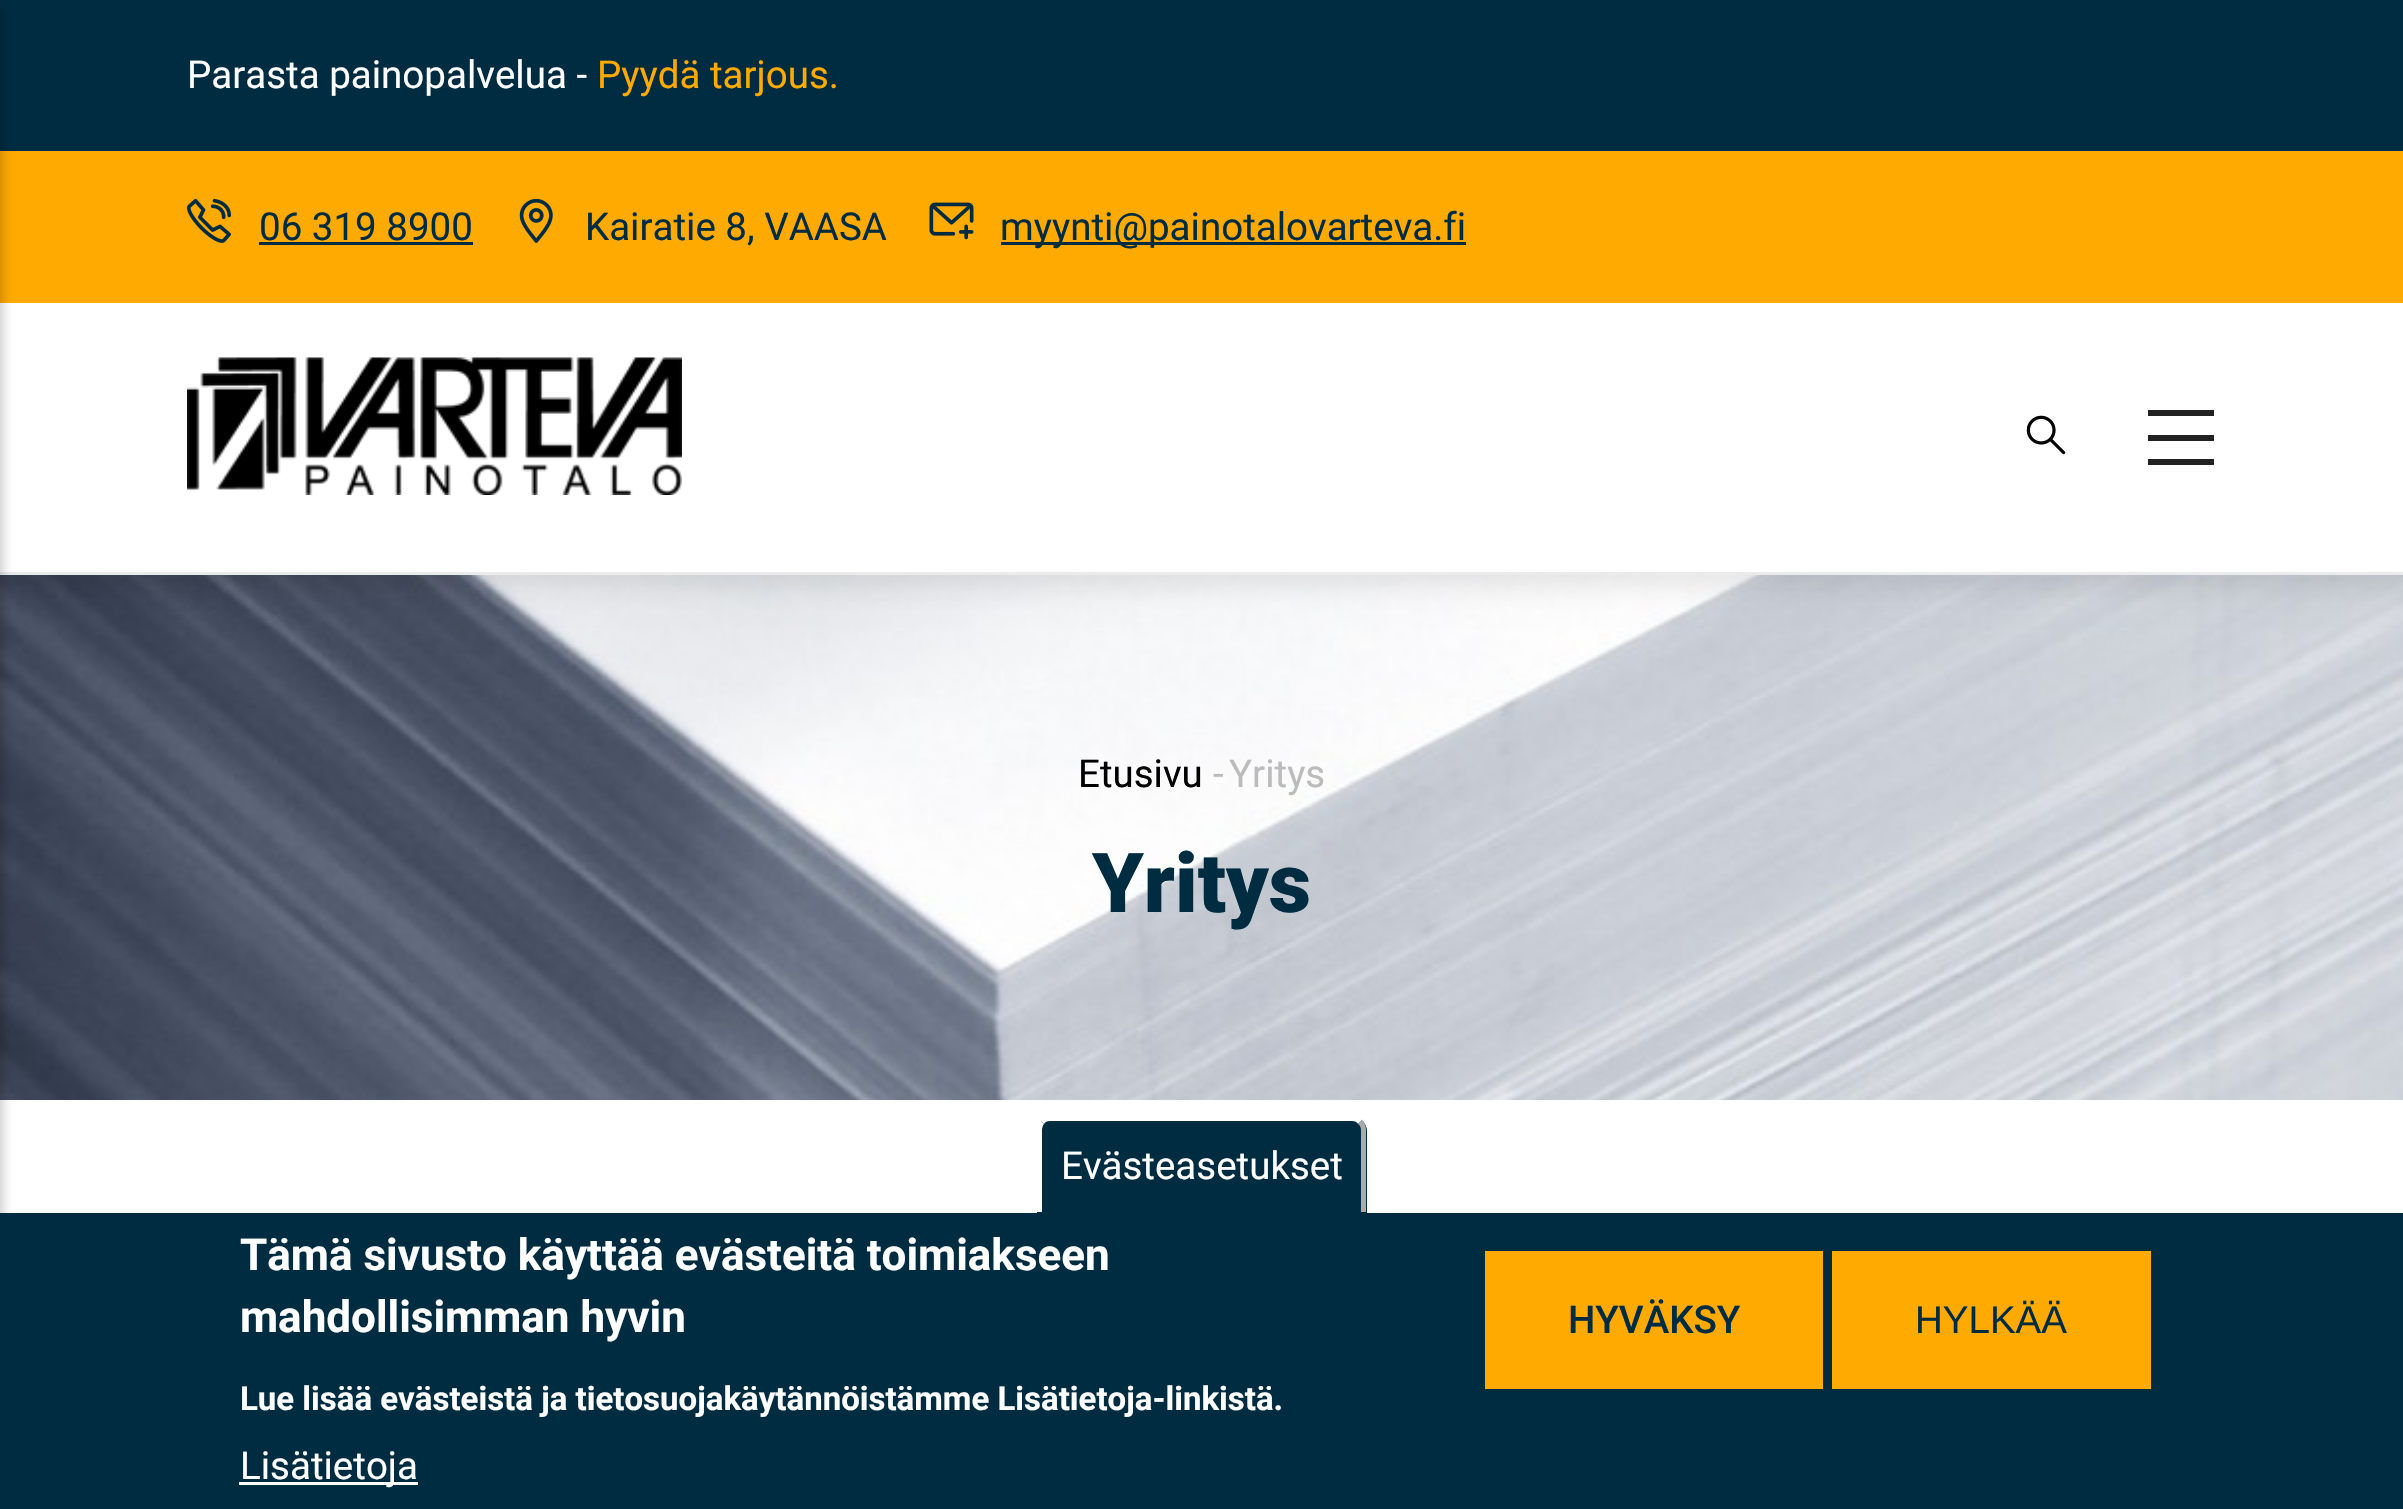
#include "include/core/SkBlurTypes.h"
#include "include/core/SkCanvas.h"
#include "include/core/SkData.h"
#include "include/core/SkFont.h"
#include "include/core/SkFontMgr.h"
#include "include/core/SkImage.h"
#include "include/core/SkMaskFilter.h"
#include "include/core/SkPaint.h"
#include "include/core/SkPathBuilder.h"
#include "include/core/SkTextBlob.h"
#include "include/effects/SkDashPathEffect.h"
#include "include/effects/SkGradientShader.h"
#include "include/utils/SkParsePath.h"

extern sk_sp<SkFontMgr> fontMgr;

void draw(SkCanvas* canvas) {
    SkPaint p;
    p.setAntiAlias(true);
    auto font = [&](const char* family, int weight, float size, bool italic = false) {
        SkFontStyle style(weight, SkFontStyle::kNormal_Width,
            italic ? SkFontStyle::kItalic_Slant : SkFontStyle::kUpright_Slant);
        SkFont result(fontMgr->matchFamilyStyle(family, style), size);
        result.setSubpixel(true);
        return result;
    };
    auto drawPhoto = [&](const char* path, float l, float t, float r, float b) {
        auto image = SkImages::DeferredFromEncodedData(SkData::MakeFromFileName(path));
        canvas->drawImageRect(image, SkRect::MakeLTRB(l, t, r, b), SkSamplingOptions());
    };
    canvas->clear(0xFFFFFFFF);
    drawPhoto("media/6.png", 0, 575, 2403, 1100);
    p.setColor(0x1A000000);
    p.setMaskFilter(SkMaskFilter::MakeBlur(kNormal_SkBlurStyle, 14));
    canvas->drawRect(SkRect::MakeLTRB(-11, -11, 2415, 586), p);
    p.setMaskFilter(nullptr);
    {
        const struct { float l, t, r, b; SkColor color; } items[] = {
            {0, 303, 2403, 572, 0xFFFFFFFF},
            {0, 572, 2403, 575, 0xFFEBEBEB},
            {0, 0, 2403, 151, 0xFF002C42},
            {0, 151, 2403, 303, 0xFFFFAA01},
        };
        for (auto [l, t, r, b, color] : items) {
            p.setColor(color);
            canvas->drawRect(SkRect::MakeLTRB(l, t, r, b), p);
        }
    }
    p.setColor(0x33000000);
    p.setMaskFilter(SkMaskFilter::MakeBlur(kNormal_SkBlurStyle, 5.5f));
    canvas->drawRect(SkRect::MakeLTRB(-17, 8, 3, 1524), p);
    p.setMaskFilter(nullptr);
    drawPhoto("media/1.png", 2026, 415, 2066, 455);
    {
        const struct { float l, t, r, b; SkColor color; } items[] = {
            {2148, 410, 2214, 416, 0xFF222222},
            {2148, 435, 2214, 441, 0xFF222222},
            {2148, 459, 2214, 465, 0xFF222222},
        };
        for (auto [l, t, r, b, color] : items) {
            p.setColor(color);
            canvas->drawRect(SkRect::MakeLTRB(l, t, r, b), p);
        }
    }
    drawPhoto("media/2.png", 187, 357, 682, 495);
    auto font1 = font("Roboto", 400, 38.5f);
    p.setColor(0xFFFFFFFF);
    canvas->drawString("Parasta painopalvelua -", 187, 88, font1, p);
    p.setColor(0xFFFFAA01);
    canvas->drawString("Pyydä tarjous.", 597, 88, font1, p);
    drawPhoto("media/3.png", 187, 198, 231, 243);
    p.setColor(0xFF002C42);
    canvas->drawString("06 319 8900", 259, 240, font1, p);
    canvas->drawRect(SkRect::MakeLTRB(259, 242, 473, 245), p);
    drawPhoto("media/4.png", 519, 198, 553, 243);
    canvas->drawString("Kairatie 8, VAASA", 585, 240, font1, p);
    drawPhoto("media/5.png", 929, 202, 974, 240);
    canvas->drawRect(SkRect::MakeLTRB(1001, 242, 1466, 245), p);
    canvas->drawString("myynti@painotalovarteva.fi", 1000, 240, font1, p);
    p.setColor(0xFF000000);
    canvas->drawString("Etusivu", 1078, 787, font1, p);
    p.setColor(0xFFBBBBBB);
    canvas->drawString("-", 1213, 787, font1, p);
    canvas->drawString("Yritys", 1229, 787, font1, p);
    auto font2 = font("Roboto", 900, 82.5f);
    p.setColor(0xFF002C42);
    canvas->drawString("Yritys", 1092, 912, font2, p);
    canvas->drawRect(SkRect::MakeLTRB(0, 1213, 2403, 1509), p);
    canvas->drawPath(SkPathBuilder().moveTo(1051, 1117).lineTo(1353, 1117).cubicTo(1360.5f, 1117, 1367, 1123.5f, 1367, 1131).lineTo(1367, 1213).lineTo(1037, 1213).lineTo(1037, 1131).cubicTo(1037, 1123.5f, 1043.5f, 1117, 1051, 1117).close().detach(), p);
    p.setColor(0xFFFFFFFF);
    canvas->drawPath(SkPathBuilder().moveTo(1050, 1116).lineTo(1352, 1116).cubicTo(1356, 1116, 1360, 1118, 1362, 1120).lineTo(1358, 1124).cubicTo(1357, 1122, 1355, 1121, 1352, 1121).lineTo(1050, 1121).cubicTo(1047, 1121, 1045, 1122, 1044, 1124).lineTo(1040, 1120).cubicTo(1043, 1117, 1046, 1116, 1050, 1116).close().detach(), p);
    p.setColor(0xFFAAAAAA);
    canvas->drawPath(SkPathBuilder().moveTo(1358, 1124).cubicTo(1360, 1125, 1361, 1128, 1361, 1130).lineTo(1361, 1212).lineTo(1366, 1212).lineTo(1366, 1130).cubicTo(1366, 1126, 1365, 1123, 1362, 1120).close().detach(), p);
    p.setColor(0xFFFFFFFF);
    canvas->drawPath(SkPathBuilder().moveTo(1040, 1120).lineTo(1044, 1124).cubicTo(1043, 1125, 1042, 1128, 1042, 1130).lineTo(1042, 1212).lineTo(1036, 1212).lineTo(1036, 1128).cubicTo(1036, 1125, 1038, 1122, 1040, 1120).close().detach(), p);
    canvas->drawString("Evästeasetukset", 1061, 1179, font1, p);
    auto font3 = font("Roboto", 700, 44);
    canvas->drawString("Tämä sivusto käyttää evästeitä toimiakseen", 240, 1270, font3, p);
    canvas->drawString("mahdollisimman hyvin", 240, 1332, font3, p);
    auto font4 = font("Roboto", 700, 33);
    canvas->drawString("Lue lisää evästeistä ja tietosuojakäytännöistämme Lisätietoja-linkistä.", 240, 1410, font4, p);
    canvas->drawRect(SkRect::MakeLTRB(239, 1482, 418, 1485), p);
    canvas->drawString("Lisätietoja", 240, 1479, font1, p);
    p.setColor(0xFFFFAA01);
    canvas->drawRect(SkRect::MakeLTRB(1485, 1251, 1823, 1389), p);
    auto font5 = font("Roboto", 500, 38.5f);
    p.setColor(0xFF002C42);
    canvas->drawString("HYVÄKSY", 1568, 1333, font5, p);
    p.setColor(0xFFFFAA01);
    canvas->drawRect(SkRect::MakeLTRB(1832, 1251, 2151, 1389), p);
    auto font6 = font("Liberation Sans", 400, 38.5f);
    p.setColor(0xFF002C42);
    canvas->drawString("HYLKÄÄ", 1915, 1333, font6, p);
}
